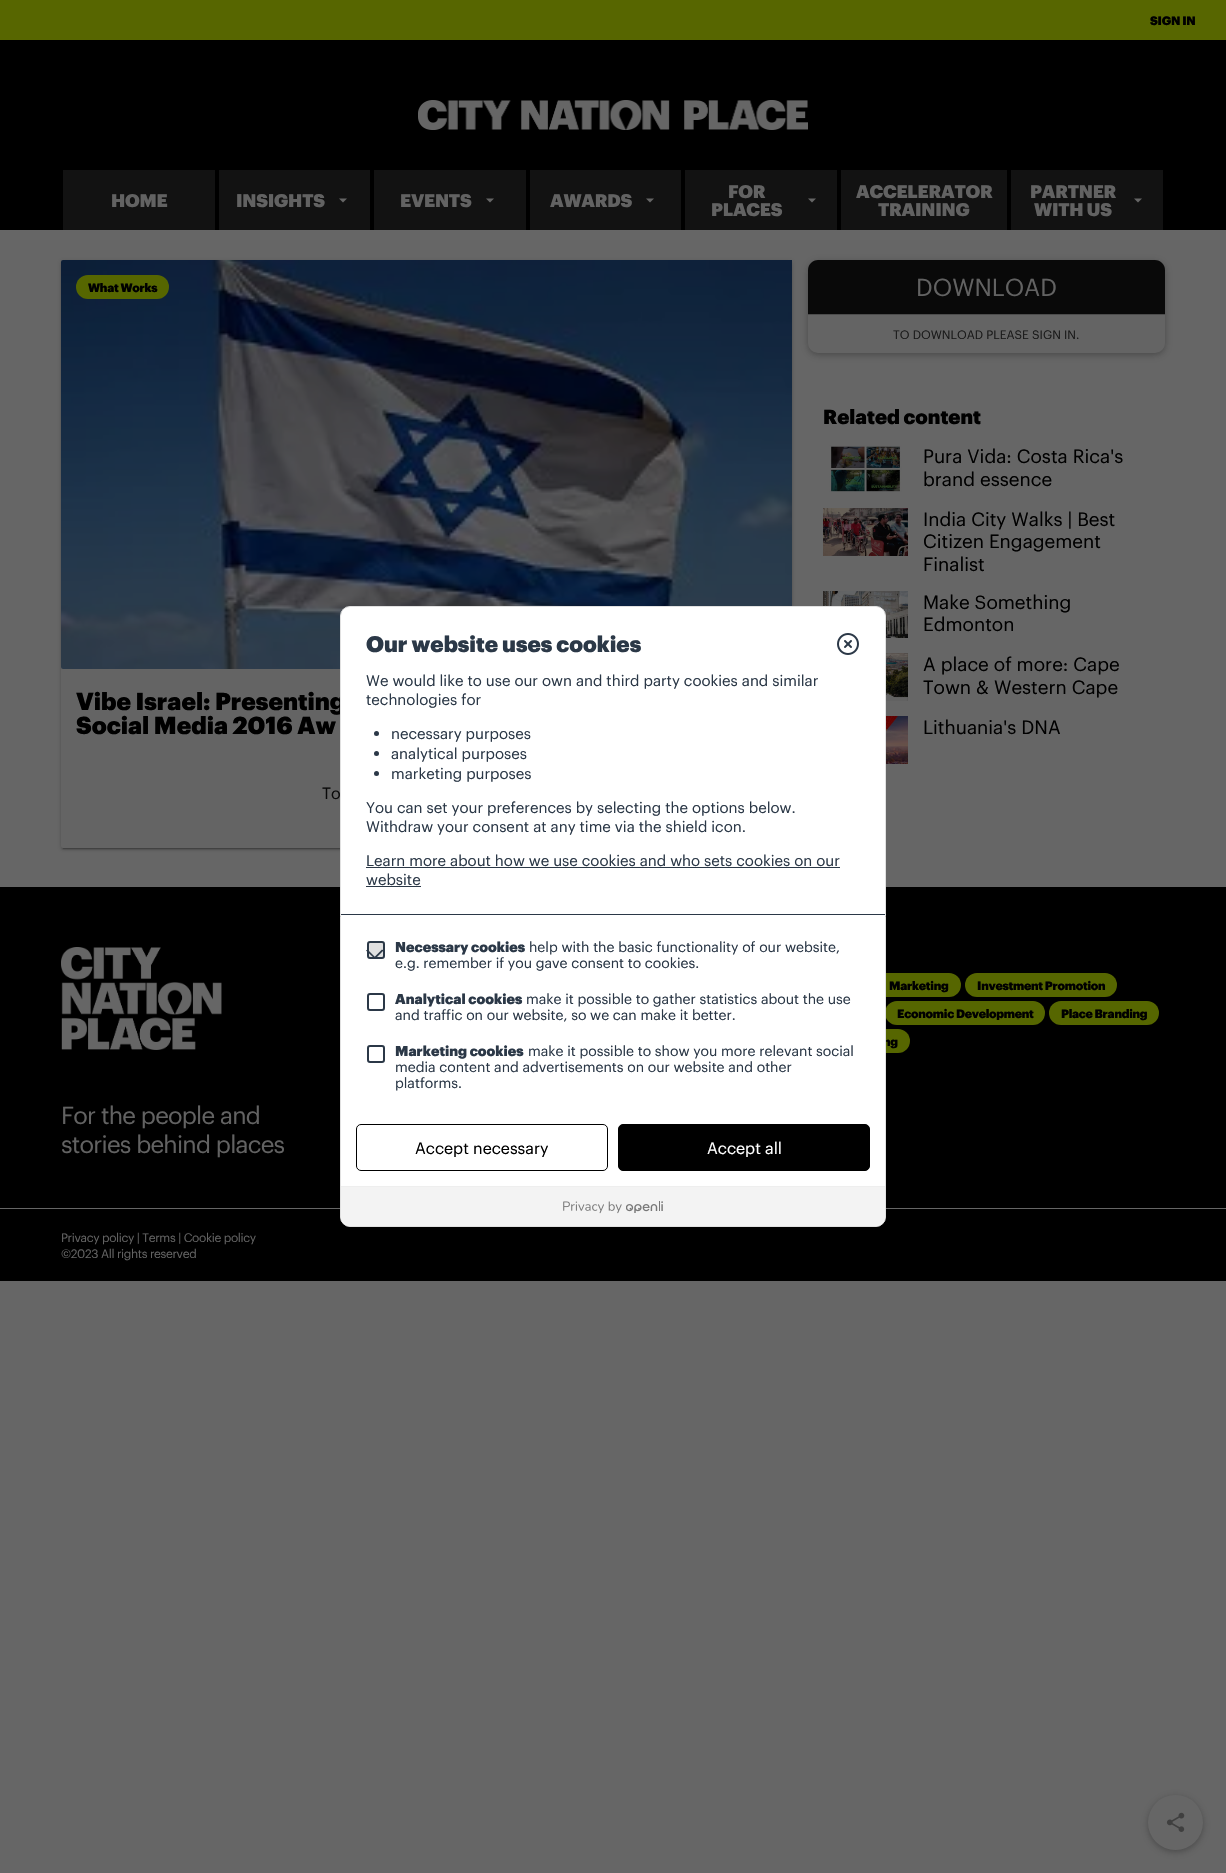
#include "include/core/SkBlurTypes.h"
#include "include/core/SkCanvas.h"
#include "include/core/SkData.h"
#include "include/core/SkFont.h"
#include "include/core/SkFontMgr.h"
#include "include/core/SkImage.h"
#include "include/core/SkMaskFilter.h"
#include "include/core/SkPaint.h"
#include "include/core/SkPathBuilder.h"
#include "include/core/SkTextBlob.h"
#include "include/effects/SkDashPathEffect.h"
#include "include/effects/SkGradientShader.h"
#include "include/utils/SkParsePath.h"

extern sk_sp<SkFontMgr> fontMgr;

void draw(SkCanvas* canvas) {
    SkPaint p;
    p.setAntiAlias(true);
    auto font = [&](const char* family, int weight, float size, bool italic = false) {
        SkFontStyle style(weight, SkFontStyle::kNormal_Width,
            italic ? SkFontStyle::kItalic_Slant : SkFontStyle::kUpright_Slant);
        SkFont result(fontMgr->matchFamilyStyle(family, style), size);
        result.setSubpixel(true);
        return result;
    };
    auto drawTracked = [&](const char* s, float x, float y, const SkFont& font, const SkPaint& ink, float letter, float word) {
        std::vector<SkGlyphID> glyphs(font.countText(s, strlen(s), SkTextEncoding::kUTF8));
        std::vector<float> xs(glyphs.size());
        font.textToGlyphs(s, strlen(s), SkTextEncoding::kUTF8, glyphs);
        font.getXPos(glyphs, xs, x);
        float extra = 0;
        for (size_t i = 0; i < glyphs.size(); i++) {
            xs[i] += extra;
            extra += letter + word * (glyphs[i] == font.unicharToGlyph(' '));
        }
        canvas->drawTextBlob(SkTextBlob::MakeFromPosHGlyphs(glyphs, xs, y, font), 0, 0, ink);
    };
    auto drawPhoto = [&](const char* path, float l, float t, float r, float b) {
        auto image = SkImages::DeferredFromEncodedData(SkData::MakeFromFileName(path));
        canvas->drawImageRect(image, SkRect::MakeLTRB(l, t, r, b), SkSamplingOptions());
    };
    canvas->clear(0xFF666666);
    p.setColor(0xFF576600);
    canvas->drawRect(SkRect::MakeLTRB(0, 0, 1226, 40), p);
    auto font1 = font("Graphik", 900, 12);
    p.setColor(0xFF000000);
    drawTracked("SIGN IN", 1150, 25, font1, p, -0.25f, 0);
    canvas->drawRect(SkRect::MakeLTRB(0, 40, 1226, 230), p);
    drawPhoto("media/1.png", 418, 100, 808, 130);
    p.setColor(0xFF121212);
    canvas->drawRect(SkRect::MakeLTRB(63, 170, 215, 230), p);
    auto font2 = font("Graphik", 900, 18);
    p.setColor(0xFF626262);
    drawTracked("HOME", 111, 207, font2, p, -0.25f, 0);
    p.setColor(0xFF121212);
    canvas->drawRect(SkRect::MakeLTRB(219, 170, 370, 230), p);
    p.setColor(0xFF626262);
    drawTracked("INSIGHTS", 236, 207, font2, p, -0.25f, 0);
    p.setColor(0xFF666666);
    canvas->drawPath(SkPathBuilder().moveTo(339, 198.5f).lineTo(347, 198.5f).lineTo(343, 202.5f).close().detach(), p);
    p.setColor(0xFF121212);
    canvas->drawRect(SkRect::MakeLTRB(374, 170, 526, 230), p);
    p.setColor(0xFF626262);
    drawTracked("EVENTS", 400, 207, font2, p, -0.25f, 0);
    p.setColor(0xFF666666);
    canvas->drawPath(SkPathBuilder().moveTo(486, 198.5f).lineTo(494, 198.5f).lineTo(490, 202.5f).close().detach(), p);
    p.setColor(0xFF121212);
    canvas->drawRect(SkRect::MakeLTRB(530, 170, 681, 230), p);
    p.setColor(0xFF626262);
    drawTracked("AWARDS", 550, 207, font2, p, -0.25f, 0);
    p.setColor(0xFF666666);
    canvas->drawPath(SkPathBuilder().moveTo(646, 198.5f).lineTo(654, 198.5f).lineTo(650, 202.5f).close().detach(), p);
    p.setColor(0xFF121212);
    canvas->drawRect(SkRect::MakeLTRB(685, 170, 837, 230), p);
    p.setColor(0xFF626262);
    drawTracked("FOR", 728, 198, font2, p, -0.25f, 0);
    p.setColor(0xFF666666);
    canvas->drawPath(SkPathBuilder().moveTo(808, 198.5f).lineTo(816, 198.5f).lineTo(812, 202.5f).close().detach(), p);
    p.setColor(0xFF626262);
    drawTracked("PLACES", 711, 216, font2, p, -0.25f, 0);
    p.setColor(0xFF121212);
    canvas->drawRect(SkRect::MakeLTRB(841, 170, 1007, 230), p);
    p.setColor(0xFF626262);
    drawTracked("ACCELERATOR", 856, 198, font2, p, -0.25f, 0);
    drawTracked("TRAINING", 878, 216, font2, p, -0.25f, 0);
    p.setColor(0xFF121212);
    canvas->drawRect(SkRect::MakeLTRB(1011, 170, 1163, 230), p);
    p.setColor(0xFF626262);
    drawTracked("PARTNER", 1030, 198, font2, p, -0.25f, 0);
    p.setColor(0xFF666666);
    canvas->drawPath(SkPathBuilder().moveTo(1134, 198.5f).lineTo(1142, 198.5f).lineTo(1138, 202.5f).close().detach(), p);
    p.setColor(0xFF626262);
    drawTracked("WITH US", 1034, 216, font2, p, -0.25f, 0);
    p.setColor(0x1F000000);
    p.setMaskFilter(SkMaskFilter::MakeBlur(kNormal_SkBlurStyle, 2.5f));
    canvas->drawRoundRect(SkRect::MakeLTRB(61, 261, 792, 849), 2, 2, p);
    p.setMaskFilter(nullptr);
    p.setColor(0x33000000);
    p.setMaskFilter(SkMaskFilter::MakeBlur(kNormal_SkBlurStyle, 0.5f));
    canvas->drawRect(SkRect::MakeLTRB(63, 265, 790, 849), p);
    p.setMaskFilter(nullptr);
    p.setColor(0x24000000);
    p.setMaskFilter(SkMaskFilter::MakeBlur(kNormal_SkBlurStyle, 1));
    canvas->drawRoundRect(SkRect::MakeLTRB(61, 262, 792, 850), 2, 2, p);
    p.setMaskFilter(nullptr);
    p.setColor(0xFF646464);
    canvas->drawRoundRect(SkRect::MakeLTRB(61, 260, 792, 848), 2, 2, p);
    drawPhoto("media/2.png", 61, 260, 792, 669);
    p.setColor(0xFF566600);
    canvas->drawRoundRect(SkRect::MakeLTRB(76, 275, 169, 299), 12, 12, p);
    p.setColor(0xFF000000);
    drawTracked("What Works", 88, 292, font1, p, -0.25f, 0);
    auto font3 = font("Graphik", 900, 24);
    canvas->drawString("Vibe Israel: Presenting", 76, 710, font3, p);
    canvas->drawString("Social Media 2016 Aw", 76, 734, font3, p);
    auto font4 = font("Graphik", 400, 16);
    p.setColor(0xFF090909);
    canvas->drawString("To", 322, 799, font4, p);
    p.setColor(0x1F000000);
    p.setMaskFilter(SkMaskFilter::MakeBlur(kNormal_SkBlurStyle, 5));
    canvas->drawRoundRect(SkRect::MakeLTRB(808, 262, 1165, 355), 10, 10, p);
    p.setMaskFilter(nullptr);
    p.setColor(0x29000000);
    p.setMaskFilter(SkMaskFilter::MakeBlur(kNormal_SkBlurStyle, 2.5f));
    canvas->drawRoundRect(SkRect::MakeLTRB(808, 262, 1165, 355), 10, 10, p);
    p.setMaskFilter(nullptr);
    p.setColor(0xFF646464);
    canvas->drawRoundRect(SkRect::MakeLTRB(808, 260, 1165, 353), 10, 10, p);
    p.setColor(0xFF090909);
    canvas->drawPath(SkPathBuilder().moveTo(818, 260).lineTo(1155, 260).cubicTo(1160.5f, 260, 1165, 264.5f, 1165, 270).lineTo(1165, 314).lineTo(808, 314).lineTo(808, 270).cubicTo(808, 264.5f, 812.5f, 260, 818, 260).close().detach(), p);
    auto font5 = font("Graphik", 400, 24);
    p.setColor(0xFF626262);
    canvas->drawString("DOWNLOAD", 916, 296, font5, p);
    p.setColor(0xFF4C4C4C);
    canvas->drawRect(SkRect::MakeLTRB(808, 314, 1165, 315), p);
    auto font6 = font("Graphik", 400, 12);
    p.setColor(0xFF1A1A1A);
    canvas->drawString("TO DOWNLOAD PLEASE SIGN IN.", 893, 339, font6, p);
    auto font7 = font("Graphik", 900, 20);
    p.setColor(0xFF000000);
    canvas->drawString("Related content", 823, 424, font7, p);
    drawPhoto("media/3.png", 829, 445, 902, 492);
    auto font8 = font("Graphik", 400, 18.8f);
    canvas->drawString("Pura Vida: Costa Rica's", 923, 463, font8, p);
    canvas->drawString("brand essence", 923, 486, font8, p);
    drawPhoto("media/4.png", 823, 508, 908, 556);
    {
        const struct { const char* s; float x, y; } items[] = {
            {"India City Walks | Best", 923, 526},
            {"Citizen Engagement", 923, 548},
            {"Finalist", 923, 571},
        };
        for (auto [s, x, y] : items) {
            canvas->drawString(s, x, y, font8, p);
        }
    }
    drawPhoto("media/5.png", 823, 591, 908, 638);
    canvas->drawString("Make Something", 923, 609, font8, p);
    canvas->drawString("Edmonton", 923, 631, font8, p);
    drawPhoto("media/6.png", 886, 653, 908, 701);
    canvas->drawString("A place of more: Cape", 923, 671, font8, p);
    canvas->drawString("Town & Western Cape", 923, 694, font8, p);
    drawPhoto("media/7.png", 886, 716, 908, 764);
    canvas->drawString("Lithuania's DNA", 923, 734, font8, p);
    p.setColor(0x1F000000);
    p.setMaskFilter(SkMaskFilter::MakeBlur(kNormal_SkBlurStyle, 5));
    canvas->drawRoundRect(SkRect::MakeLTRB(1148, 1797, 1203, 1852), 27.5f, 27.5f, p);
    p.setMaskFilter(nullptr);
    p.setColor(0x29000000);
    p.setMaskFilter(SkMaskFilter::MakeBlur(kNormal_SkBlurStyle, 2.5f));
    canvas->drawRoundRect(SkRect::MakeLTRB(1148, 1797, 1203, 1852), 27.5f, 27.5f, p);
    p.setMaskFilter(nullptr);
    p.setColor(0xFF666666);
    canvas->drawCircle(1175.5f, 1822.5f, 27.5f, p);
    drawPhoto("media/8.png", 1166, 1812, 1185, 1832);
    p.setColor(0xFF000000);
    canvas->drawRect(SkRect::MakeLTRB(0, 887, 1226, 1281), p);
    p.setColor(0xFF566600);
    canvas->drawRoundRect(SkRect::MakeLTRB(810, 973, 961, 997), 12, 12, p);
    p.setColor(0xFF000000);
    drawTracked("Marketing", 889, 990, font1, p, -0.25f, 0);
    p.setColor(0xFF566600);
    canvas->drawRoundRect(SkRect::MakeLTRB(965, 973, 1117, 997), 12, 12, p);
    p.setColor(0xFF000000);
    drawTracked("Investment Promotion", 977, 990, font1, p, -0.25f, 0);
    p.setColor(0xFF566600);
    canvas->drawRoundRect(SkRect::MakeLTRB(885, 1001, 1045, 1025), 12, 12, p);
    p.setColor(0xFF000000);
    drawTracked("Economic Development", 897, 1018, font1, p, -0.25f, 0);
    p.setColor(0xFF566600);
    canvas->drawRoundRect(SkRect::MakeLTRB(1049, 1001, 1159, 1025), 12, 12, p);
    p.setColor(0xFF000000);
    drawTracked("Place Branding", 1061, 1018, font1, p, -0.25f, 0);
    p.setColor(0xFF566600);
    canvas->drawRoundRect(SkRect::MakeLTRB(810, 1029, 910, 1053), 12, 12, p);
    p.setColor(0xFF000000);
    drawTracked("ng", 883, 1046, font1, p, -0.25f, 0);
    drawPhoto("media/9.png", 61, 947, 222, 1050);
    p.setColor(0xFF626262);
    drawTracked("For the people and", 61, 1124, font5, p, -0.75f, 0);
    drawTracked("stories behind places", 61, 1153, font5, p, -0.75f, 0);
    p.setColor(0xFF666666);
    canvas->drawRect(SkRect::MakeLTRB(0, 1208, 1226, 1209), p);
    p.setColor(0xFF626262);
    drawTracked("Privacy policy | Terms | Cookie policy", 61, 1242, font6, p, -0.35f, 0);
    drawTracked("©2023 All rights reserved", 61, 1258, font6, p, -0.35f, 0);
    p.setColor(0xFFFFFFFF);
    canvas->drawRoundRect(SkRect::MakeLTRB(340.5f, 606.5f, 885.5f, 1226.5f), 9.5f, 9.5f, p);
    p.setStyle(SkPaint::kStroke_Style);
    p.setStrokeWidth(1);
    p.setColor(0xFFE1E1E1);
    canvas->drawRoundRect(SkRect::MakeLTRB(340.5f, 606.5f, 885.5f, 1226.5f), 9.5f, 9.5f, p);
    p.setStyle(SkPaint::kFill_Style);
    p.setColor(0xFF2B3847);
    canvas->drawRect(SkRect::MakeLTRB(341, 914, 885, 915), p);
    auto font9 = font("Graphik", 900, 22);
    canvas->drawString("Our website uses cookies", 366, 652, font9, p);
    drawPhoto("media/10.png", 837, 633, 859, 655);
    auto font10 = font("Graphik", 400, 15);
    canvas->drawString("We would like to use our own and third party cookies and similar", 366, 686, font10, p);
    canvas->drawString("technologies for", 366, 705, font10, p);
    canvas->drawCircle(376.5f, 733.5f, 2.5f, p);
    canvas->drawString("necessary purposes", 391, 739, font10, p);
    canvas->drawCircle(376.5f, 753.5f, 2.5f, p);
    canvas->drawString("analytical purposes", 391, 759, font10, p);
    canvas->drawCircle(376.5f, 773.5f, 2.5f, p);
    {
        const struct { const char* s; float x, y; } items[] = {
            {"marketing purposes", 391, 779},
            {"You can set your preferences by selecting the options below.", 366, 813},
            {"Withdraw your consent at any time via the shield icon.", 366, 832},
            {"Learn more about how we use cookies and who sets cookies on our", 366, 866},
        };
        for (auto [s, x, y] : items) {
            canvas->drawString(s, x, y, font10, p);
        }
    }
    canvas->drawRect(SkRect::MakeLTRB(366, 867, 840, 868), p);
    canvas->drawString("website", 366, 885, font10, p);
    canvas->drawRect(SkRect::MakeLTRB(366, 886, 421, 887), p);
    p.setColor(0xFFE0E0E0);
    canvas->drawRoundRect(SkRect::MakeLTRB(368, 942, 384, 958), 2, 2, p);
    p.setStyle(SkPaint::kStroke_Style);
    p.setStrokeWidth(2);
    p.setColor(0xFF2B3847);
    canvas->drawRoundRect(SkRect::MakeLTRB(368, 942, 384, 958), 2, 2, p);
    p.setStyle(SkPaint::kFill_Style);
    canvas->drawPath(SkPathBuilder().moveTo(382, 949.5f).lineTo(383.5f, 950.5f).lineTo(375, 959).lineTo(373.5f, 958).close().detach(), p);
    canvas->drawPath(SkPathBuilder().moveTo(367.5f, 949.5f).lineTo(376, 958).lineTo(375, 959).lineTo(366, 950.5f).close().detach(), p);
    auto font11 = font("Graphik", 900, 14);
    canvas->drawString("Necessary cookies", 395, 952, font11, p);
    auto font12 = font("Graphik", 400, 14);
    canvas->drawString("help with the basic functionality of our website,", 529, 952, font12, p);
    canvas->drawString("e.g. remember if you gave consent to cookies.", 395, 968, font12, p);
    p.setStyle(SkPaint::kStroke_Style);
    canvas->drawRoundRect(SkRect::MakeLTRB(368, 994, 384, 1010), 2, 2, p);
    p.setStyle(SkPaint::kFill_Style);
    canvas->drawString("Analytical cookies", 395, 1004, font11, p);
    canvas->drawString("make it possible to gather statistics about the use", 526, 1004, font12, p);
    canvas->drawString("and traffic on our website, so we can make it better.", 395, 1020, font12, p);
    p.setStyle(SkPaint::kStroke_Style);
    canvas->drawRoundRect(SkRect::MakeLTRB(368, 1046, 384, 1062), 2, 2, p);
    p.setStyle(SkPaint::kFill_Style);
    canvas->drawString("Marketing cookies", 395, 1056, font11, p);
    {
        const struct { const char* s; float x, y; } items[] = {
            {"make it possible to show you more relevant social", 528, 1056},
            {"media content and advertisements on our website and other", 395, 1072},
            {"platforms.", 395, 1088},
        };
        for (auto [s, x, y] : items) {
            canvas->drawString(s, x, y, font12, p);
        }
    }
    p.setStyle(SkPaint::kStroke_Style);
    p.setStrokeWidth(1);
    p.setColor(0xFF000000);
    canvas->drawRoundRect(SkRect::MakeLTRB(356.5f, 1124.5f, 607.5f, 1170.5f), 4.5f, 4.5f, p);
    p.setStyle(SkPaint::kFill_Style);
    canvas->drawString("Accept necessary", 415, 1154, font4, p);
    canvas->drawRoundRect(SkRect::MakeLTRB(618.5f, 1124.5f, 869.5f, 1170.5f), 4.5f, 4.5f, p);
    p.setStyle(SkPaint::kStroke_Style);
    canvas->drawRoundRect(SkRect::MakeLTRB(618.5f, 1124.5f, 869.5f, 1170.5f), 4.5f, 4.5f, p);
    p.setStyle(SkPaint::kFill_Style);
    p.setColor(0xFFFFFFFF);
    canvas->drawString("Accept all", 707, 1154, font4, p);
    p.setColor(0xFFF3F3F3);
    canvas->drawPath(SkPathBuilder().moveTo(341, 1186).lineTo(885, 1186).lineTo(885, 1216).cubicTo(885, 1221.5f, 880.5f, 1226, 875, 1226).lineTo(351, 1226).cubicTo(345.5f, 1226, 341, 1221.5f, 341, 1216).close().detach(), p);
    p.setColor(0xFFEEEEEE);
    canvas->drawRect(SkRect::MakeLTRB(341, 1186, 885, 1187), p);
    drawPhoto("media/11.png", 563, 1201, 663, 1214);
}
